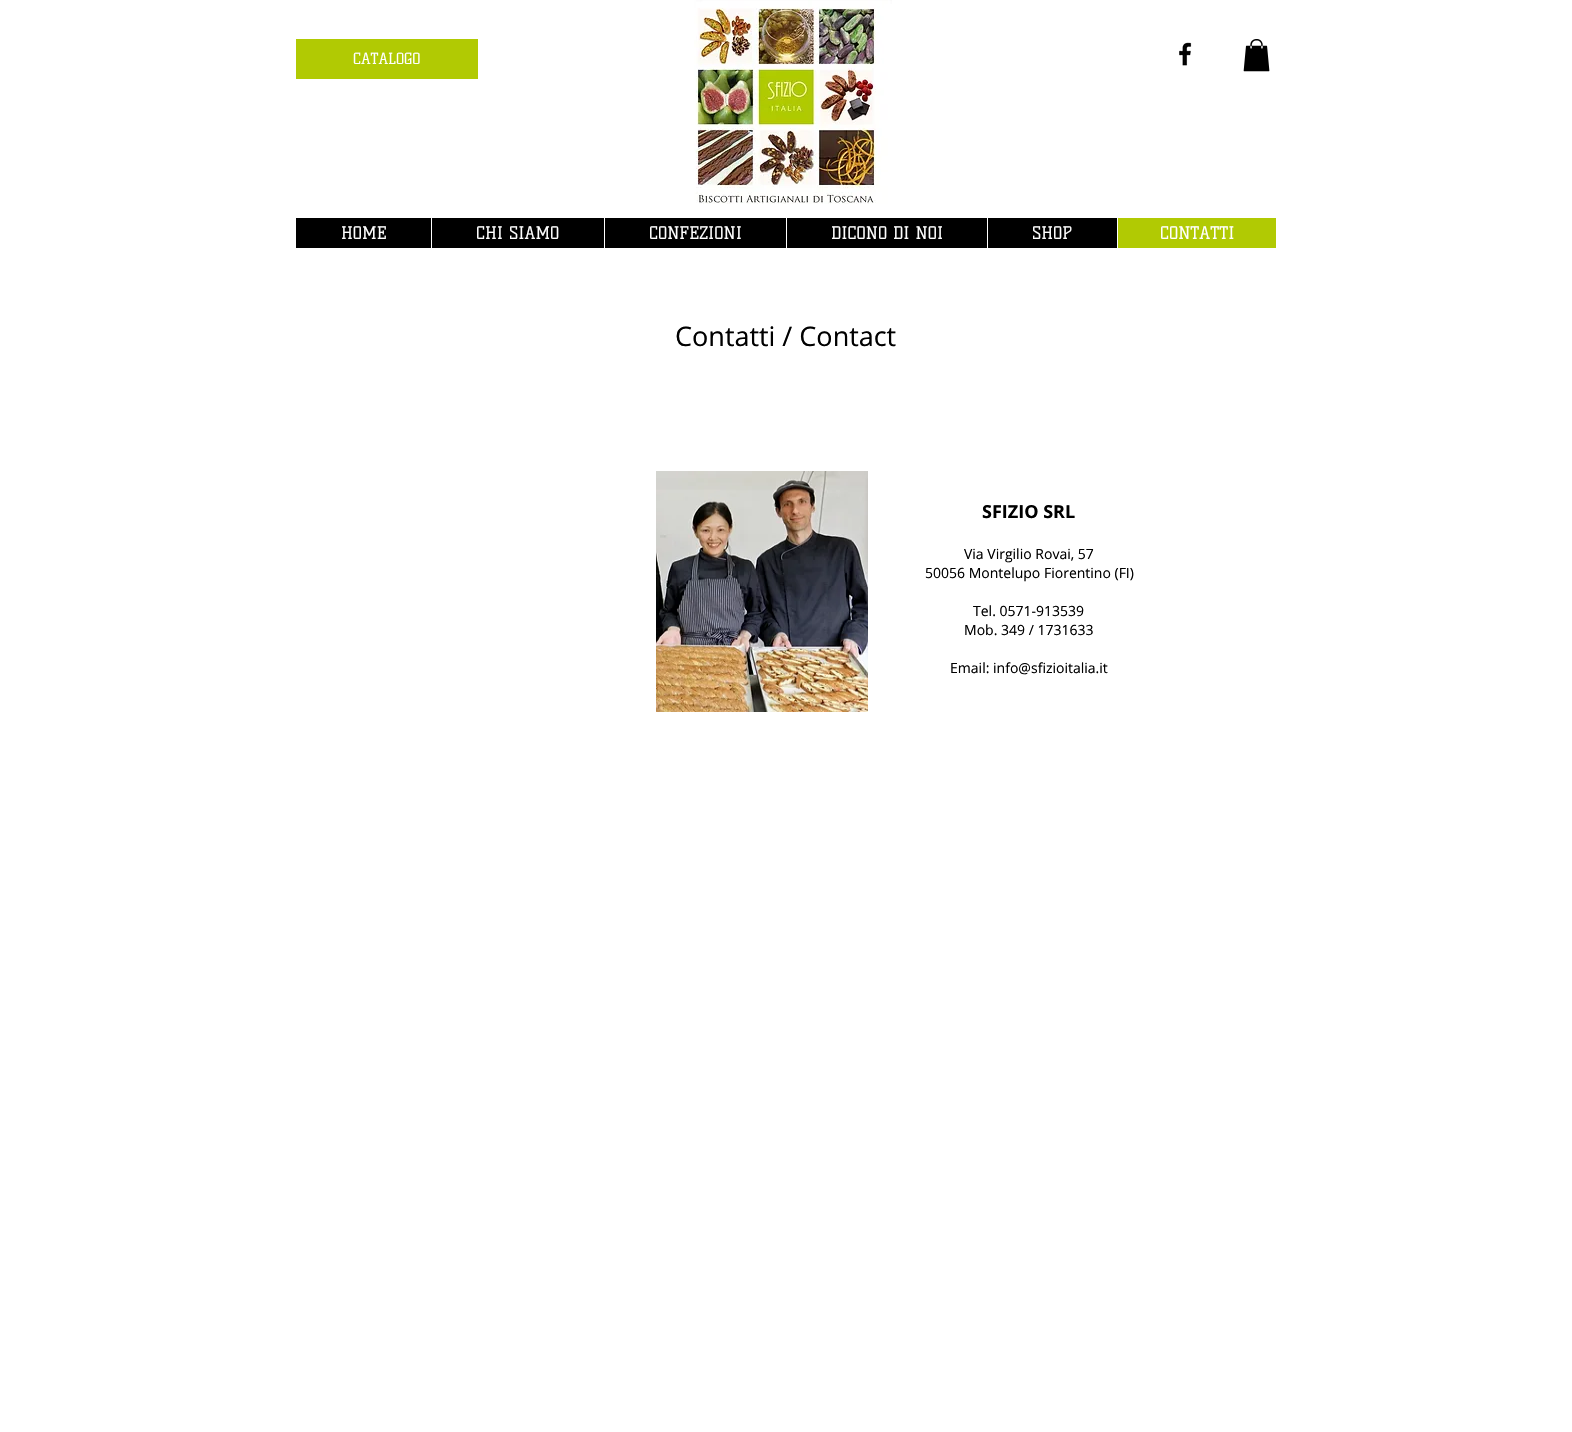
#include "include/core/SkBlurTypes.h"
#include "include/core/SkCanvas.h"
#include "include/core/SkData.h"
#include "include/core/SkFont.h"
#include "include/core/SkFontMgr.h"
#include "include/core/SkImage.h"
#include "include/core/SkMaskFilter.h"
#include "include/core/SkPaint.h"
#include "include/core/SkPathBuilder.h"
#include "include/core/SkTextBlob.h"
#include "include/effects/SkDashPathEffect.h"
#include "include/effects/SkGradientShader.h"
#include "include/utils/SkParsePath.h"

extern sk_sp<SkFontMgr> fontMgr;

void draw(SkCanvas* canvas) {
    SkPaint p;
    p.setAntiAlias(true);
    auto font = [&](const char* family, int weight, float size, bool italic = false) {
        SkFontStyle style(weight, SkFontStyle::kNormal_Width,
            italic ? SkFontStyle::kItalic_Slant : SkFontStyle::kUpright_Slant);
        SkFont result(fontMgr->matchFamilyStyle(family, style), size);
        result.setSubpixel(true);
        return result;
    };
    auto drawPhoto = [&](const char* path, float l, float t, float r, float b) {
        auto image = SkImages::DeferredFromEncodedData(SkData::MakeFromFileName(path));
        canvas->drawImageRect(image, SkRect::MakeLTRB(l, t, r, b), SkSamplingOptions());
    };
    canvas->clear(0xFFFFFFFF);
    p.setColor(0xFFB1CA03);
    canvas->drawRect(SkRect::MakeLTRB(296, 39, 478, 79), p);
    auto font1 = font("Kelly Slab", 400, 15);
    p.setColor(0xFFFFFFFF);
    canvas->drawString("CATALOGO", 353, 64, font1, p);
    drawPhoto("media/1.png", 694, 0, 892, 204);
    drawPhoto("media/2.png", 1179, 42, 1192, 66);
    drawPhoto("media/3.png", 1243, 39, 1270, 72);
    p.setColor(0xFF000000);
    canvas->drawRect(SkRect::MakeLTRB(296, 218, 1117, 248), p);
    auto font2 = font("Kelly Slab", 400, 17);
    p.setColor(0xFFFFFFFF);
    canvas->drawString("HOME", 341, 239, font2, p);
    canvas->drawRect(SkRect::MakeLTRB(431, 218, 432, 248), p);
    canvas->drawString("CHI SIAMO", 476, 239, font2, p);
    canvas->drawRect(SkRect::MakeLTRB(604, 218, 605, 248), p);
    canvas->drawString("CONFEZIONI", 649, 239, font2, p);
    canvas->drawRect(SkRect::MakeLTRB(786, 218, 787, 248), p);
    canvas->drawString("DICONO DI NOI", 831, 239, font2, p);
    canvas->drawRect(SkRect::MakeLTRB(987, 218, 988, 248), p);
    canvas->drawString("SHOP", 1032, 239, font2, p);
    p.setColor(0xFFB1CA03);
    canvas->drawRect(SkRect::MakeLTRB(1118, 218, 1276, 248), p);
    p.setColor(0xFFFFFFFF);
    canvas->drawString("CONTATTI", 1160, 239, font2, p);
    auto font3 = font("Open Sans", 400, 27);
    p.setColor(0xFF000000);
    canvas->drawString("Contatti / Contact", 675, 346, font3, p);
    drawPhoto("media/4.png", 656, 471, 868, 712);
    auto font4 = font("Open Sans", 700, 18);
    canvas->drawString("SFIZIO SRL", 982, 518, font4, p);
    auto font5 = font("Open Sans", 400, 14);
    {
        const struct { const char* s; float x, y; } items[] = {
            {"Via Virgilio Rovai, 57", 964, 559},
            {"50056 Montelupo Fiorentino (FI)", 925, 578},
            {"Tel. 0571-913539", 973, 616},
            {"Mob. 349 / 1731633", 964, 635},
            {"Email: info@sfizioitalia.it", 950, 673},
        };
        for (auto [s, x, y] : items) {
            canvas->drawString(s, x, y, font5, p);
        }
    }
}
